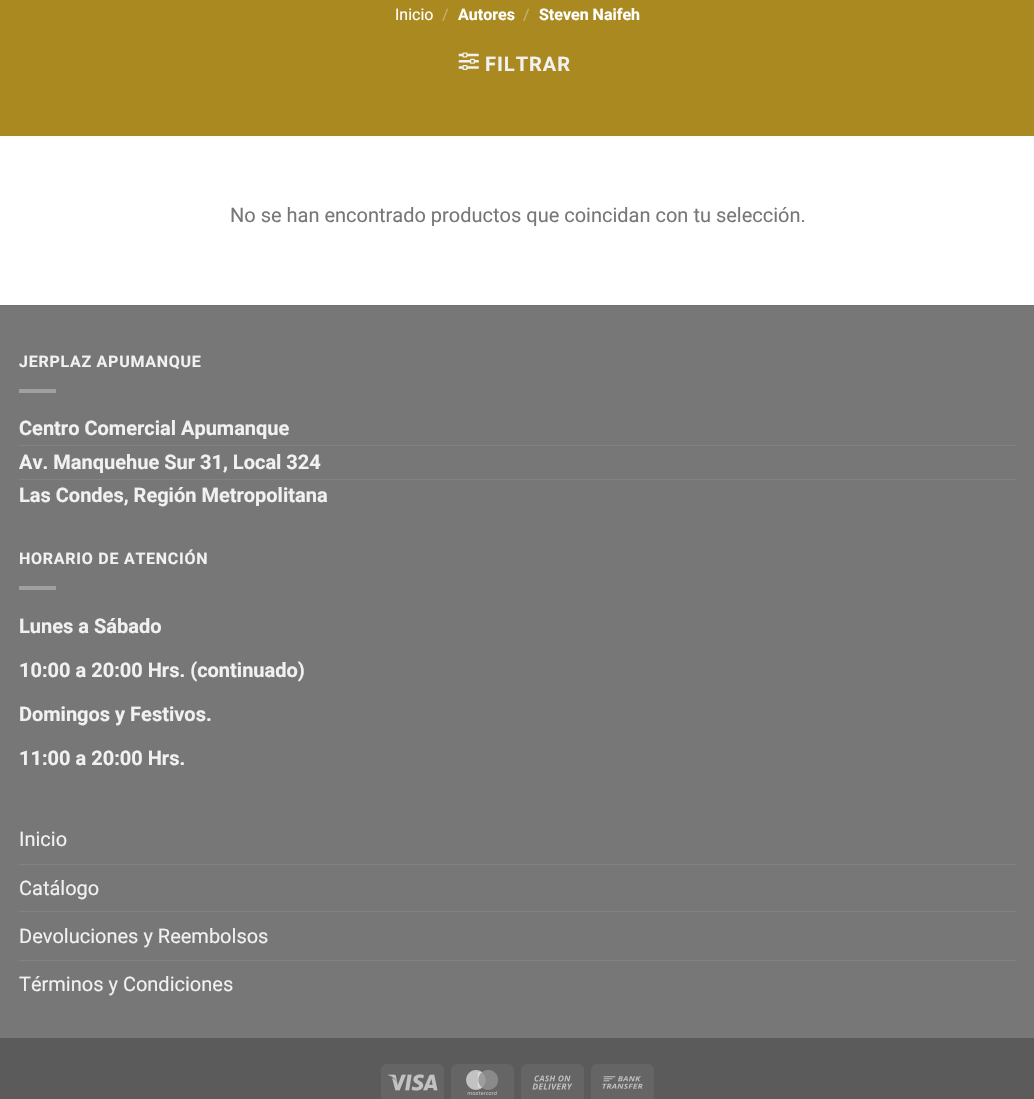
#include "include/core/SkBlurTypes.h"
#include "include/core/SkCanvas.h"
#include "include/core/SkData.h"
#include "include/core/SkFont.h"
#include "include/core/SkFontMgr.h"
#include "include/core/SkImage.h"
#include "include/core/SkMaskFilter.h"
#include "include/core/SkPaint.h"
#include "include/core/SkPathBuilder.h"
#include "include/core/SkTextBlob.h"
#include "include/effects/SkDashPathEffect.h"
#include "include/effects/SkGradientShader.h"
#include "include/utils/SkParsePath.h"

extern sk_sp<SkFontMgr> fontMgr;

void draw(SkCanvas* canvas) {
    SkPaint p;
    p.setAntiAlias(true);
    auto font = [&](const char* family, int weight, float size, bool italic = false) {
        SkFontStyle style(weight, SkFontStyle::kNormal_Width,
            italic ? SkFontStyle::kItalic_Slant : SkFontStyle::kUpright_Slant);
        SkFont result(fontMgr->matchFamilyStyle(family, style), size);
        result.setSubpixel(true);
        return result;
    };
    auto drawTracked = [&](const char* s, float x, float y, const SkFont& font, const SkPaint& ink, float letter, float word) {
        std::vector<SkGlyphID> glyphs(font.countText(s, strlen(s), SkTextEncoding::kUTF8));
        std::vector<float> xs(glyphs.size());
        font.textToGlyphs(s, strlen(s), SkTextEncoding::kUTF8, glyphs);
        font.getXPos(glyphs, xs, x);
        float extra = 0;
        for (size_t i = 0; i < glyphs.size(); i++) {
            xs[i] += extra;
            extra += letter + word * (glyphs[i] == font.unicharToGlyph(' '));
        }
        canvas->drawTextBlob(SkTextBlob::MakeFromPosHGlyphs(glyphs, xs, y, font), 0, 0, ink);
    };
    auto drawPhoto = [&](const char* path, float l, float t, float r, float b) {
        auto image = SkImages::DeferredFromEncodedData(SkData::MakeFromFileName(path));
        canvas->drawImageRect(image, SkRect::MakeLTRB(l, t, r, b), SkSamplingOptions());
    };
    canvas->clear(0xFFFFFFFF);
    p.setColor(0xFFAA8920);
    canvas->drawRect(SkRect::MakeLTRB(0, 0, 1034, 136), p);
    auto font1 = font("Roboto", 400, 16);
    p.setColor(0xFFFFFFFF);
    canvas->drawString("Inicio", 395, 20, font1, p);
    p.setColor(0xFFC8B26E);
    canvas->drawString("/", 442, 20, font1, p);
    auto font2 = font("Roboto", 700, 16);
    p.setColor(0xFFFFFFFF);
    canvas->drawString("Autores", 458, 20, font2, p);
    p.setColor(0xFFC8B26E);
    canvas->drawString("/", 523, 20, font1, p);
    p.setColor(0xFFFFFFFF);
    canvas->drawString("Steven Naifeh", 539, 20, font2, p);
    drawPhoto("media/1.png", 458, 52, 479, 70);
    auto font3 = font("Roboto", 700, 20);
    p.setColor(0xFFF1F1F1);
    drawTracked("FILTRAR", 485, 71, font3, p, 1, 0);
    auto font4 = font("Roboto", 400, 20);
    p.setColor(0xFF777777);
    canvas->drawString("No se han encontrado productos que coincidan con tu selección.", 230, 222, font4, p);
    canvas->drawRect(SkRect::MakeLTRB(0, 306, 1034, 1038), p);
    p.setColor(0xFF717171);
    canvas->drawRect(SkRect::MakeLTRB(0, 305, 1034, 306), p);
    p.setColor(0xFFF1F1F1);
    drawTracked("JERPLAZ APUMANQUE", 19, 367, font2, p, 0.75f, 0);
    p.setColor(0xFFA0A0A0);
    canvas->drawRect(SkRect::MakeLTRB(19, 389, 56, 393), p);
    p.setColor(0xFFF1F1F1);
    canvas->drawString("Centro Comercial Apumanque", 19, 435, font3, p);
    p.setColor(0xFF828282);
    canvas->drawRect(SkRect::MakeLTRB(19, 445, 1016, 446), p);
    p.setColor(0xFFF1F1F1);
    canvas->drawString("Av. Manquehue Sur 31, Local 324", 19, 469, font3, p);
    p.setColor(0xFF828282);
    canvas->drawRect(SkRect::MakeLTRB(19, 479, 1016, 480), p);
    p.setColor(0xFFF1F1F1);
    canvas->drawString("Las Condes, Región Metropolitana", 19, 502, font3, p);
    drawTracked("HORARIO DE ATENCIÓN", 19, 564, font2, p, 0.75f, 0);
    p.setColor(0xFFA0A0A0);
    canvas->drawRect(SkRect::MakeLTRB(19, 586, 56, 590), p);
    p.setColor(0xFFF1F1F1);
    {
        const struct { const char* s; float x, y; } items[] = {
            {"Lunes a Sábado", 19, 633},
            {"10:00 a 20:00 Hrs. (continuado)", 19, 677},
            {"Domingos y Festivos.", 19, 721},
            {"11:00 a 20:00 Hrs.", 19, 765},
        };
        for (auto [s, x, y] : items) {
            canvas->drawString(s, x, y, font3, p);
        }
    }
    canvas->drawString("Inicio", 19, 846, font4, p);
    p.setColor(0xFF828282);
    canvas->drawRect(SkRect::MakeLTRB(19, 864, 1016, 865), p);
    p.setColor(0xFFF1F1F1);
    canvas->drawString("Catálogo", 19, 895, font4, p);
    p.setColor(0xFF828282);
    canvas->drawRect(SkRect::MakeLTRB(19, 911, 1016, 912), p);
    p.setColor(0xFFF1F1F1);
    canvas->drawString("Devoluciones y Reembolsos", 19, 943, font4, p);
    p.setColor(0xFF828282);
    canvas->drawRect(SkRect::MakeLTRB(19, 960, 1016, 961), p);
    p.setColor(0xFFF1F1F1);
    canvas->drawString("Términos y Condiciones", 19, 991, font4, p);
    p.setColor(0xFF5B5B5B);
    canvas->drawRect(SkRect::MakeLTRB(0, 1038, 1034, 1099), p);
    p.setColor(0xFF656565);
    canvas->drawRoundRect(SkRect::MakeLTRB(381, 1064, 444, 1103), 6, 6, p);
    drawPhoto("media/2.png", 388, 1074, 438, 1091);
    canvas->drawRoundRect(SkRect::MakeLTRB(451, 1064, 514, 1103), 6, 6, p);
    drawPhoto("media/3.png", 466, 1070, 498, 1095);
    canvas->drawRoundRect(SkRect::MakeLTRB(521, 1064, 584, 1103), 6, 6, p);
    drawPhoto("media/4.png", 532, 1075, 573, 1090);
    canvas->drawRoundRect(SkRect::MakeLTRB(591, 1064, 654, 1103), 6, 6, p);
    drawPhoto("media/5.png", 602, 1076, 643, 1089);
}
